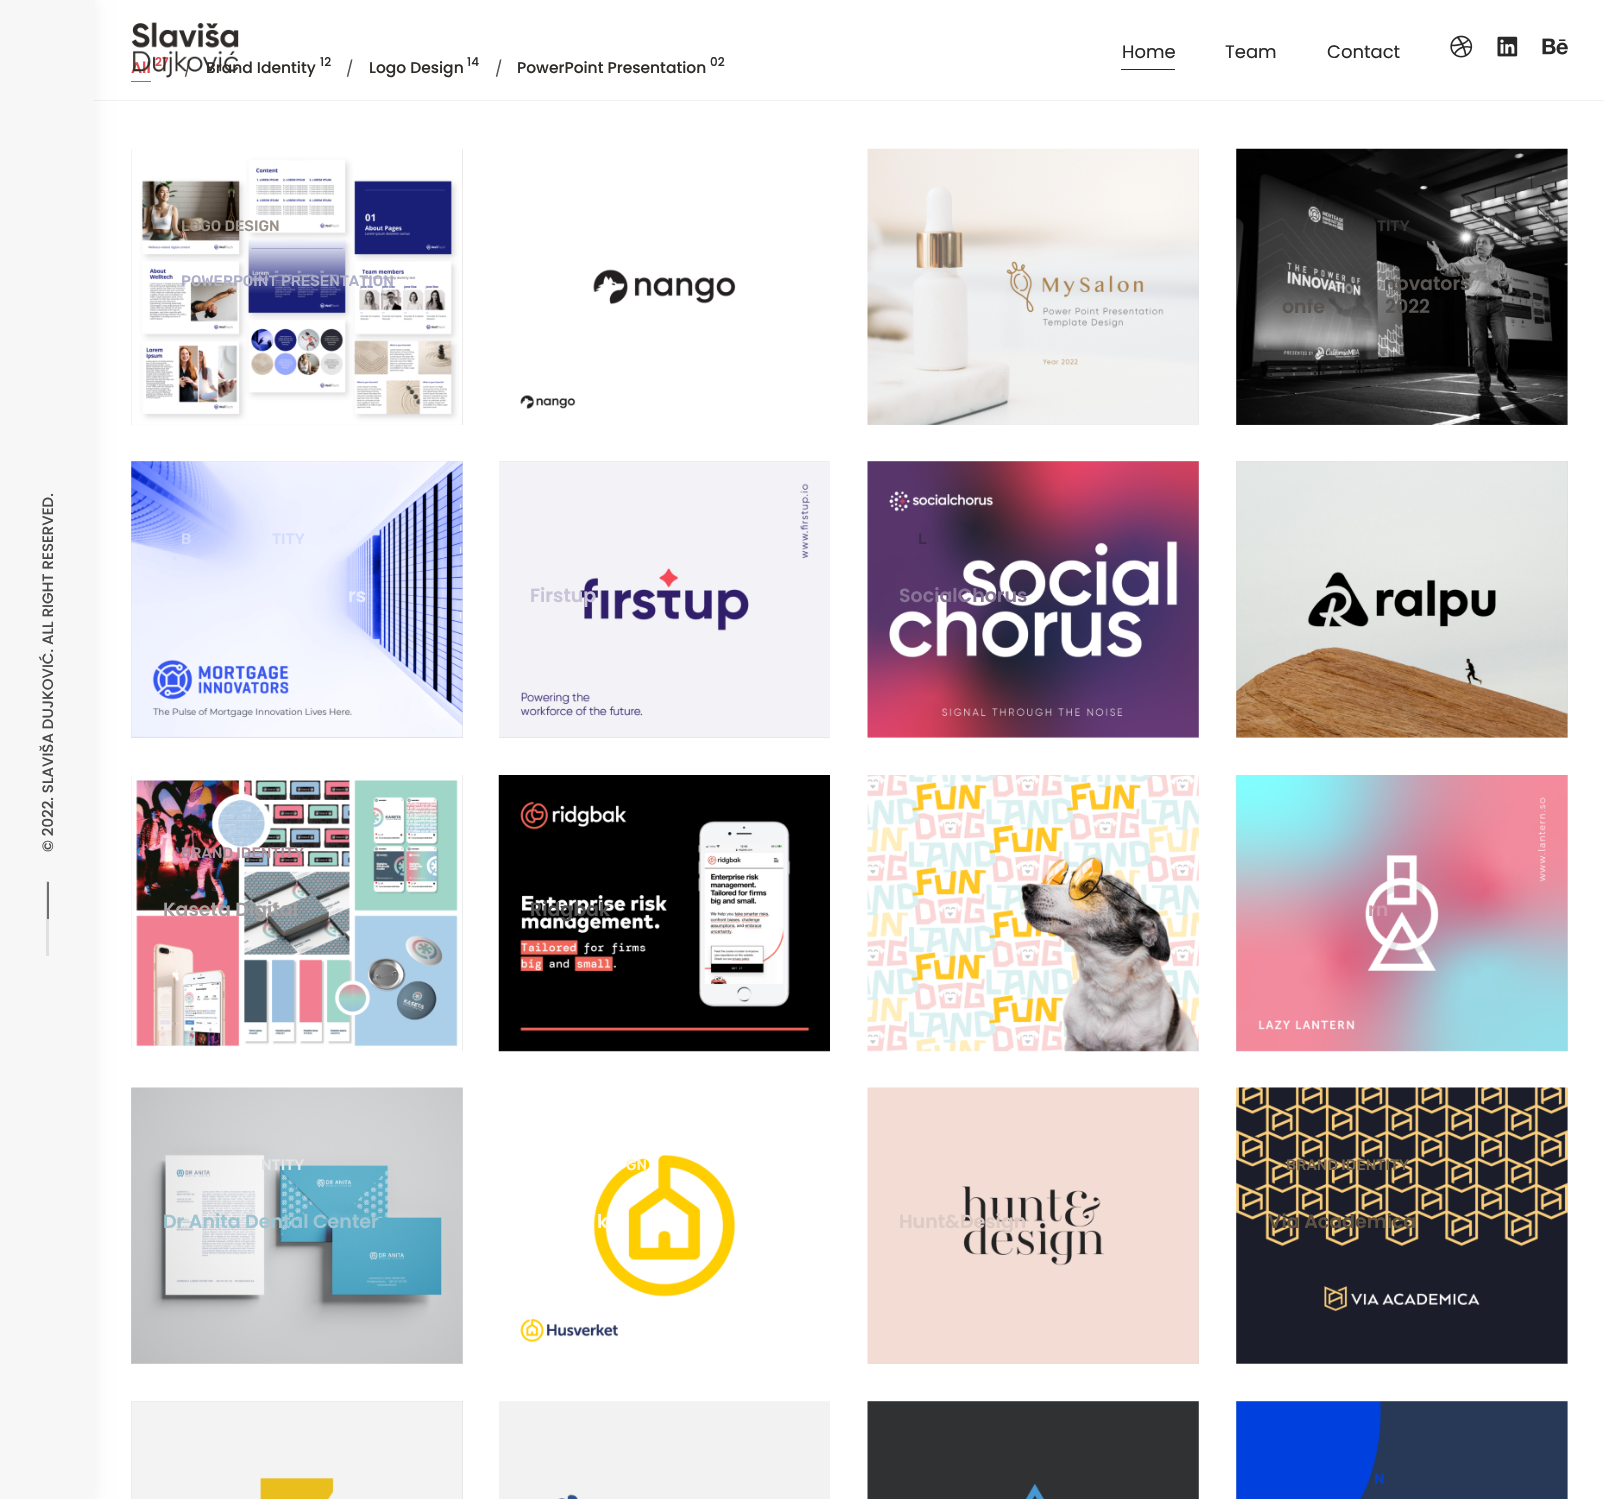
#include "include/core/SkBlurTypes.h"
#include "include/core/SkCanvas.h"
#include "include/core/SkData.h"
#include "include/core/SkFont.h"
#include "include/core/SkFontMgr.h"
#include "include/core/SkImage.h"
#include "include/core/SkMaskFilter.h"
#include "include/core/SkPaint.h"
#include "include/core/SkPathBuilder.h"
#include "include/core/SkTextBlob.h"
#include "include/effects/SkDashPathEffect.h"
#include "include/effects/SkGradientShader.h"
#include "include/utils/SkParsePath.h"

extern sk_sp<SkFontMgr> fontMgr;

void draw(SkCanvas* canvas) {
    SkPaint p;
    p.setAntiAlias(true);
    auto font = [&](const char* family, int weight, float size, bool italic = false) {
        SkFontStyle style(weight, SkFontStyle::kNormal_Width,
            italic ? SkFontStyle::kItalic_Slant : SkFontStyle::kUpright_Slant);
        SkFont result(fontMgr->matchFamilyStyle(family, style), size);
        result.setSubpixel(true);
        return result;
    };
    auto drawPhoto = [&](const char* path, float l, float t, float r, float b) {
        auto image = SkImages::DeferredFromEncodedData(SkData::MakeFromFileName(path));
        canvas->drawImageRect(image, SkRect::MakeLTRB(l, t, r, b), SkSamplingOptions());
    };
    canvas->clear(0xFFFFFFFF);
    p.setColor(0x0F000000);
    p.setMaskFilter(SkMaskFilter::MakeBlur(kNormal_SkBlurStyle, 7.5f));
    canvas->drawRect(SkRect::MakeLTRB(0, 1, 95, 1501), p);
    p.setMaskFilter(nullptr);
    p.setColor(0xFFF7F7F7);
    canvas->drawRect(SkRect::MakeLTRB(0, 0, 95, 1499), p);
    auto font1 = font("Poppins", 500, 15);
    p.setColor(0xFF494949);
    canvas->save();
    canvas->rotate(-90, 53, 852);
    canvas->drawString("© 2022. SLAVIŠA DUJKOVIĆ. ALL RIGHT RESERVED.", 53, 852, font1, p);
    canvas->restore();
    {
        const struct { float l, t, r, b; SkColor color; } items[] = {
            {46, 881, 49, 956, 0xFFE0E0E0},
            {47, 882, 49, 919, 0xFF707070},
            {94, 100, 1604, 101, 0x0F000000},
        };
        for (auto [l, t, r, b, color] : items) {
            p.setColor(color);
            canvas->drawRect(SkRect::MakeLTRB(l, t, r, b), p);
        }
    }
    auto font2 = font("Poppins", 600, 15.5f);
    p.setColor(0xFFE54B4B);
    canvas->drawString("All", 131, 73, font2, p);
    auto font3 = font("Poppins", 600, 12);
    canvas->drawString("27", 155, 66, font3, p);
    auto font4 = font("Poppins", 400, 15.5f);
    p.setColor(0xFF585553);
    canvas->drawString("/", 184, 74, font4, p);
    auto font5 = font("Poppins", 500, 15.5f);
    p.setColor(0xFF2E2B28);
    canvas->drawString("Brand Identity", 206, 73, font5, p);
    drawPhoto("media/1.png", 131, 22, 239, 78);
    auto font6 = font("Poppins", 400, 18);
    p.setColor(0xFF282828);
    canvas->drawString("Home", 1122, 58, font6, p);
    canvas->drawRect(SkRect::MakeLTRB(1121, 69, 1175, 70), p);
    canvas->drawString("Team", 1225, 58, font6, p);
    canvas->drawString("Contact", 1327, 58, font6, p);
    drawPhoto("media/2.png", 1450, 35, 1473, 58);
    drawPhoto("media/3.png", 1497, 36, 1518, 57);
    drawPhoto("media/4.png", 1542, 38, 1568, 55);
    p.setColor(0xFFE54B4B);
    canvas->drawRect(SkRect::MakeLTRB(131, 81, 151, 82), p);
    auto font7 = font("Poppins", 500, 12);
    p.setColor(0xFF2E2B28);
    canvas->drawString("12", 320, 66, font7, p);
    p.setColor(0xFF585553);
    canvas->drawString("/", 346, 74, font4, p);
    p.setColor(0xFF2E2B28);
    canvas->drawString("Logo Design", 369, 73, font5, p);
    canvas->drawString("14", 467, 66, font7, p);
    p.setColor(0xFF585553);
    canvas->drawString("/", 495, 74, font4, p);
    p.setColor(0xFF2E2B28);
    canvas->drawString("PowerPoint Presentation", 517, 73, font5, p);
    canvas->drawString("02", 710, 66, font7, p);
    p.setColor(0xFFDADADA);
    canvas->drawRect(SkRect::MakeLTRB(131, 149, 463, 425), p);
    drawPhoto("media/5.png", 131, 149, 463, 425);
    auto font8 = font("Rubik", 500, 15);
    p.setColor(0xFF9A928A);
    canvas->drawString("LOGO DESIGN", 181, 231, font8, p);
    p.setColor(0xFFADAEC9);
    canvas->drawString("POWERPOINT PRESENTATION", 181, 286, font8, p);
    drawPhoto("media/6.png", 499, 149, 830, 425);
    p.setColor(0xFFDADADA);
    canvas->drawRect(SkRect::MakeLTRB(868, 149, 1199, 425), p);
    drawPhoto("media/7.png", 867, 148, 1199, 425);
    canvas->drawRect(SkRect::MakeLTRB(1236, 149, 1568, 425), p);
    drawPhoto("media/8.png", 1236, 148, 1568, 425);
    p.setColor(0xFF363636);
    canvas->drawString("TITY", 1377, 231, font8, p);
    auto font9 = font("Poppins", 600, 19);
    p.setColor(0xFF585553);
    {
        const struct { const char* s; float x, y; } items[] = {
            {"novators", 1384, 290},
            {"onfe", 1282, 313},
            {"2022", 1385, 313},
        };
        for (auto [s, x, y] : items) {
            canvas->drawString(s, x, y, font9, p);
        }
    }
    p.setColor(0xFFDADADA);
    canvas->drawRect(SkRect::MakeLTRB(131, 461, 463, 738), p);
    drawPhoto("media/9.png", 131, 461, 463, 738);
    p.setColor(0xFFD4DCFF);
    canvas->drawString("B", 181, 544, font8, p);
    canvas->drawString("TITY", 272, 544, font8, p);
    p.setColor(0xFFE8ECFF);
    canvas->drawString("rs", 348, 602, font9, p);
    p.setColor(0xFFDADADA);
    canvas->drawRect(SkRect::MakeLTRB(499, 461, 830, 738), p);
    drawPhoto("media/10.png", 499, 461, 830, 738);
    p.setColor(0xFFC9C4D9);
    canvas->drawString("Firstup", 530, 602, font9, p);
    p.setColor(0xFFDADADA);
    canvas->drawRect(SkRect::MakeLTRB(868, 461, 1199, 738), p);
    drawPhoto("media/11.png", 867, 461, 1199, 738);
    p.setColor(0xFF3E2B49);
    canvas->drawString("L", 918, 544, font8, p);
    p.setColor(0xFF877396);
    canvas->drawString("SocialChorus", 899, 602, font9, p);
    p.setColor(0xFFDADADA);
    canvas->drawRect(SkRect::MakeLTRB(1236, 461, 1568, 738), p);
    drawPhoto("media/12.png", 1236, 461, 1568, 738);
    canvas->drawRect(SkRect::MakeLTRB(131, 775, 463, 1051), p);
    drawPhoto("media/13.png", 131, 775, 463, 1051);
    p.setColor(0xFFAD8D99);
    canvas->drawString("BRAND IDENTITY", 181, 858, font8, p);
    p.setColor(0xFFA49EA0);
    canvas->drawString("Kaseta Digital", 163, 916, font9, p);
    drawPhoto("media/14.png", 498, 775, 830, 1052);
    p.setColor(0xFF505050);
    canvas->drawString("Ridgbak", 530, 916, font9, p);
    drawPhoto("media/15.png", 867, 775, 1199, 1052);
    p.setColor(0xFFDADADA);
    canvas->drawRect(SkRect::MakeLTRB(1236, 775, 1568, 1051), p);
    drawPhoto("media/16.png", 1236, 775, 1568, 1052);
    p.setColor(0xFFD296AA);
    canvas->drawString("rn", 1368, 916, font9, p);
    p.setColor(0xFFDADADA);
    canvas->drawRect(SkRect::MakeLTRB(131, 1088, 463, 1364), p);
    drawPhoto("media/17.png", 131, 1087, 463, 1364);
    p.setColor(0xFFE2E6E8);
    canvas->drawString("NTITY", 261, 1170, font8, p);
    p.setColor(0xFF9FC5D2);
    canvas->drawString("Dr Anita Dental Center", 163, 1228, font9, p);
    drawPhoto("media/18.png", 499, 1088, 830, 1364);
    p.setColor(0xFFFFF6D0);
    canvas->drawString("GN", 626, 1170, font8, p);
    p.setColor(0xFFFFF9DE);
    canvas->drawString("k", 597, 1228, font9, p);
    p.setColor(0xFFDADADA);
    canvas->drawRect(SkRect::MakeLTRB(868, 1088, 1199, 1364), p);
    drawPhoto("media/19.png", 867, 1087, 1199, 1364);
    p.setColor(0xFFDDCAC2);
    canvas->drawString("Hunt&Design", 899, 1228, font9, p);
    p.setColor(0xFFDADADA);
    canvas->drawRect(SkRect::MakeLTRB(1236, 1088, 1568, 1364), p);
    drawPhoto("media/20.png", 1236, 1087, 1568, 1364);
    p.setColor(0xFF75644A);
    canvas->drawString("BRAND IDENTITY", 1286, 1170, font8, p);
    p.setColor(0xFF5E5242);
    canvas->drawString("Via Academica", 1268, 1228, font9, p);
    p.setColor(0xFFDADADA);
    canvas->drawRect(SkRect::MakeLTRB(131, 1401, 463, 1499), p);
    drawPhoto("media/21.png", 131, 1401, 463, 1499);
    drawPhoto("media/22.png", 499, 1401, 830, 1499);
    canvas->drawRect(SkRect::MakeLTRB(868, 1401, 1199, 1499), p);
    drawPhoto("media/23.png", 867, 1401, 1199, 1499);
    canvas->drawRect(SkRect::MakeLTRB(1236, 1401, 1568, 1499), p);
    drawPhoto("media/24.png", 1236, 1401, 1568, 1499);
    p.setColor(0xFF063FC8);
    canvas->drawString("N", 1374, 1484, font8, p);
}
